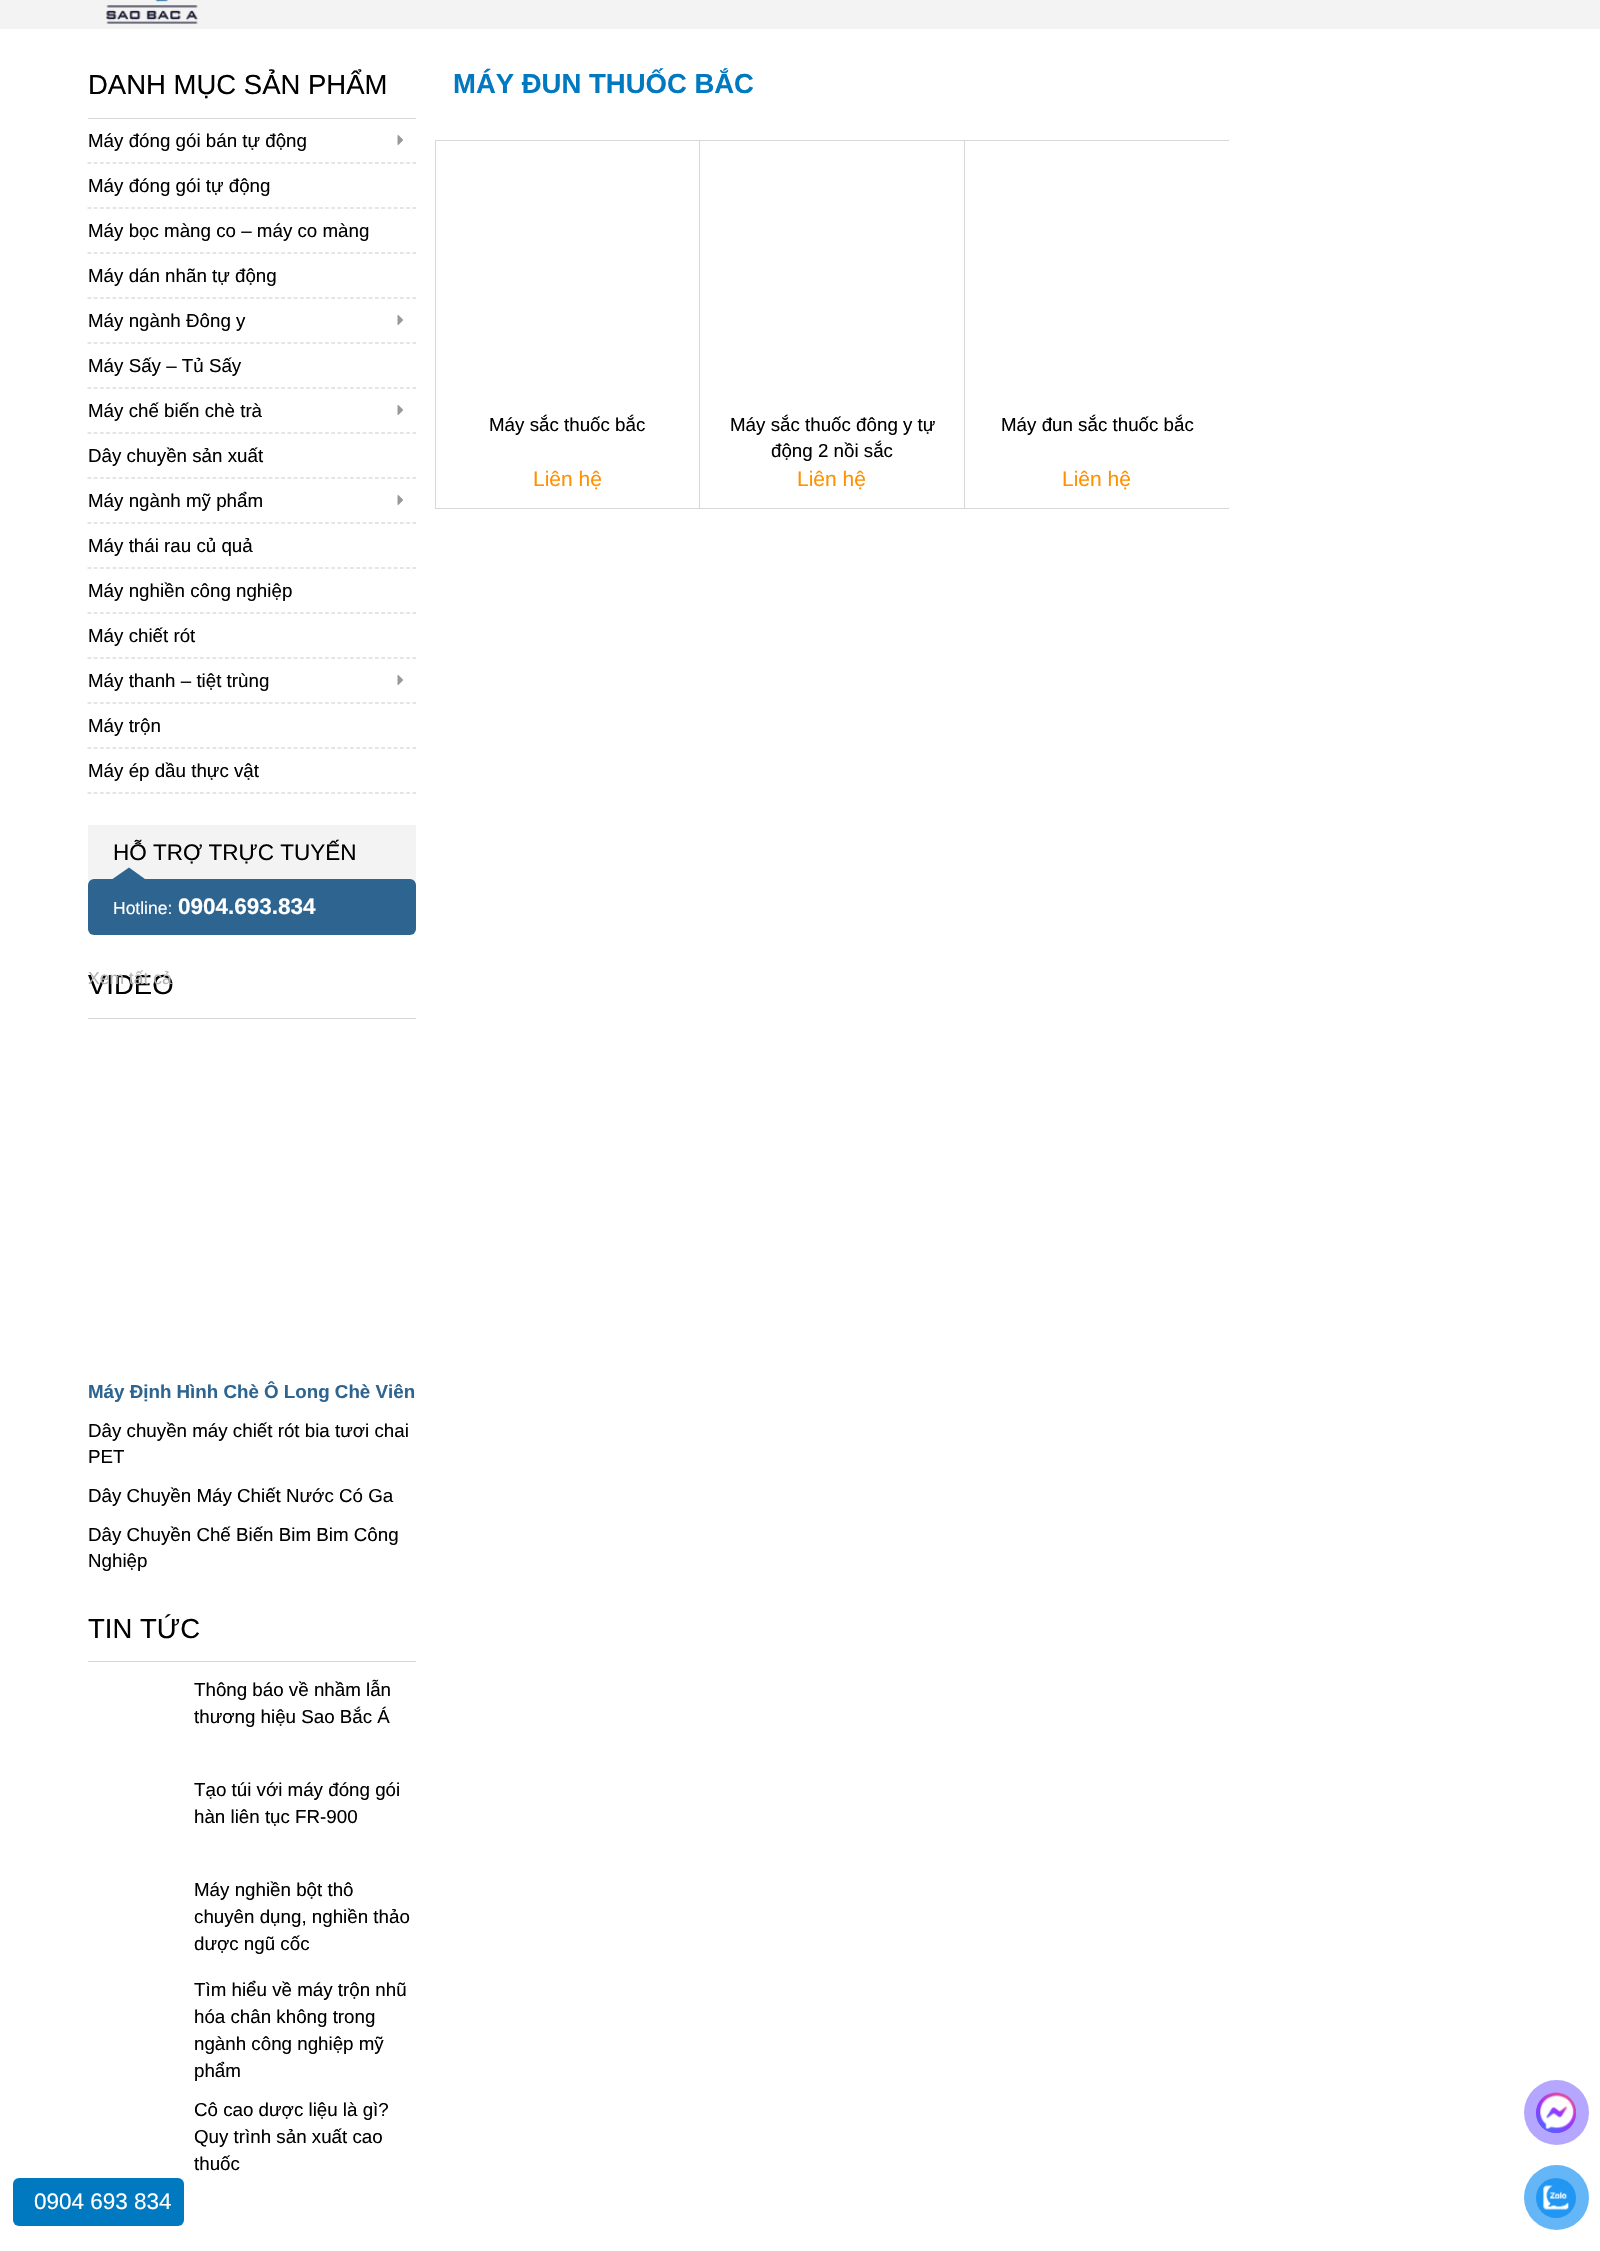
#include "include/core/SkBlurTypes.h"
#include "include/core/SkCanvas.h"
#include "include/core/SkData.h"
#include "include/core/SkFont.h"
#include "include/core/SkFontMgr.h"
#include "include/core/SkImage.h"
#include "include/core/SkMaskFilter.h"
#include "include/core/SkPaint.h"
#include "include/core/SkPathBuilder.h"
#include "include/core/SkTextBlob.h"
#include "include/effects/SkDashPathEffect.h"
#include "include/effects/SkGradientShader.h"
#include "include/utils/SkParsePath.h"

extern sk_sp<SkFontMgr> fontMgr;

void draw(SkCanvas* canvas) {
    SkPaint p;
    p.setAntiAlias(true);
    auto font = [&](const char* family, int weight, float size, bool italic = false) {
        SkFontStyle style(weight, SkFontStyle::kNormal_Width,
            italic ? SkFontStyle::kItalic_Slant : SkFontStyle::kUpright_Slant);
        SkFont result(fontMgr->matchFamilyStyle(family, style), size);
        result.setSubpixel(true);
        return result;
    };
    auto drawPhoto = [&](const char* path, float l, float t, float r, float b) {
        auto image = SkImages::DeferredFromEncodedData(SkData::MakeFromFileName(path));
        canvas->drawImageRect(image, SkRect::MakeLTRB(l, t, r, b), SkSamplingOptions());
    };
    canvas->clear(0xFFFFFFFF);
    p.setColor(0xFFF3F3F3);
    canvas->drawRect(SkRect::MakeLTRB(0, 0, 1600, 29), p);
    drawPhoto("media/1.png", 106, 0, 198, 24);
    p.setColor(0xFFD7D7D7);
    canvas->drawRect(SkRect::MakeLTRB(88, 118, 416, 119), p);
    auto font1 = font("Liberation Sans", 400, 27.5f);
    p.setColor(0xFF000000);
    canvas->drawString("DANH MỤC SẢN PHẨM", 88, 94, font1, p);
    p.setStyle(SkPaint::kStroke_Style);
    p.setStrokeWidth(1.2f);
    p.setColor(0xFFCCCCCC);
    p.setPathEffect(SkDashPathEffect::Make({{3.75f, 2.5f}}, 0));
    canvas->drawPath(SkPathBuilder().moveTo(87.5f, 163).lineTo(416, 163).detach(), p);
    p.setPathEffect(nullptr);
    auto font2 = font("Liberation Sans", 400, 18.75f);
    p.setStyle(SkPaint::kFill_Style);
    p.setColor(0xFF000000);
    canvas->drawString("Máy đóng gói bán tự động", 88, 147, font2, p);
    drawPhoto("media/2.png", 397, 135, 403, 145);
    p.setStyle(SkPaint::kStroke_Style);
    p.setColor(0xFFCCCCCC);
    p.setPathEffect(SkDashPathEffect::Make({{3.75f, 2.5f}}, 0));
    canvas->drawPath(SkPathBuilder().moveTo(87.5f, 208).lineTo(416, 208).detach(), p);
    p.setPathEffect(nullptr);
    p.setStyle(SkPaint::kFill_Style);
    p.setColor(0xFF000000);
    canvas->drawString("Máy đóng gói tự động", 88, 192, font2, p);
    p.setStyle(SkPaint::kStroke_Style);
    p.setColor(0xFFCCCCCC);
    p.setPathEffect(SkDashPathEffect::Make({{3.75f, 2.5f}}, 0));
    canvas->drawPath(SkPathBuilder().moveTo(87.5f, 253).lineTo(416, 253).detach(), p);
    p.setPathEffect(nullptr);
    p.setStyle(SkPaint::kFill_Style);
    p.setColor(0xFF000000);
    canvas->drawString("Máy bọc màng co – máy co màng", 88, 237, font2, p);
    p.setStyle(SkPaint::kStroke_Style);
    p.setColor(0xFFCCCCCC);
    p.setPathEffect(SkDashPathEffect::Make({{3.75f, 2.5f}}, 0));
    canvas->drawPath(SkPathBuilder().moveTo(87.5f, 298).lineTo(416, 298).detach(), p);
    p.setPathEffect(nullptr);
    p.setStyle(SkPaint::kFill_Style);
    p.setColor(0xFF000000);
    canvas->drawString("Máy dán nhãn tự động", 88, 282, font2, p);
    p.setStyle(SkPaint::kStroke_Style);
    p.setColor(0xFFCCCCCC);
    p.setPathEffect(SkDashPathEffect::Make({{3.75f, 2.5f}}, 0));
    canvas->drawPath(SkPathBuilder().moveTo(87.5f, 343).lineTo(416, 343).detach(), p);
    p.setPathEffect(nullptr);
    p.setStyle(SkPaint::kFill_Style);
    p.setColor(0xFF000000);
    canvas->drawString("Máy ngành Đông y", 88, 327, font2, p);
    drawPhoto("media/2.png", 397, 315, 403, 325);
    p.setStyle(SkPaint::kStroke_Style);
    p.setColor(0xFFCCCCCC);
    p.setPathEffect(SkDashPathEffect::Make({{3.75f, 2.5f}}, 0));
    canvas->drawPath(SkPathBuilder().moveTo(87.5f, 388).lineTo(416, 388).detach(), p);
    p.setPathEffect(nullptr);
    p.setStyle(SkPaint::kFill_Style);
    p.setColor(0xFF000000);
    canvas->drawString("Máy Sấy – Tủ Sấy", 88, 372, font2, p);
    p.setStyle(SkPaint::kStroke_Style);
    p.setColor(0xFFCCCCCC);
    p.setPathEffect(SkDashPathEffect::Make({{3.75f, 2.5f}}, 0));
    canvas->drawPath(SkPathBuilder().moveTo(87.5f, 433).lineTo(416, 433).detach(), p);
    p.setPathEffect(nullptr);
    p.setStyle(SkPaint::kFill_Style);
    p.setColor(0xFF000000);
    canvas->drawString("Máy chế biến chè trà", 88, 417, font2, p);
    drawPhoto("media/2.png", 397, 405, 403, 415);
    p.setStyle(SkPaint::kStroke_Style);
    p.setColor(0xFFCCCCCC);
    p.setPathEffect(SkDashPathEffect::Make({{3.75f, 2.5f}}, 0));
    canvas->drawPath(SkPathBuilder().moveTo(87.5f, 478).lineTo(416, 478).detach(), p);
    p.setPathEffect(nullptr);
    p.setStyle(SkPaint::kFill_Style);
    p.setColor(0xFF000000);
    canvas->drawString("Dây chuyền sản xuất", 88, 462, font2, p);
    p.setStyle(SkPaint::kStroke_Style);
    p.setColor(0xFFCCCCCC);
    p.setPathEffect(SkDashPathEffect::Make({{3.75f, 2.5f}}, 0));
    canvas->drawPath(SkPathBuilder().moveTo(87.5f, 523).lineTo(416, 523).detach(), p);
    p.setPathEffect(nullptr);
    p.setStyle(SkPaint::kFill_Style);
    p.setColor(0xFF000000);
    canvas->drawString("Máy ngành mỹ phẩm", 88, 507, font2, p);
    drawPhoto("media/2.png", 397, 495, 403, 505);
    p.setStyle(SkPaint::kStroke_Style);
    p.setColor(0xFFCCCCCC);
    p.setPathEffect(SkDashPathEffect::Make({{3.75f, 2.5f}}, 0));
    canvas->drawPath(SkPathBuilder().moveTo(87.5f, 568).lineTo(416, 568).detach(), p);
    p.setPathEffect(nullptr);
    p.setStyle(SkPaint::kFill_Style);
    p.setColor(0xFF000000);
    canvas->drawString("Máy thái rau củ quả", 88, 552, font2, p);
    p.setStyle(SkPaint::kStroke_Style);
    p.setColor(0xFFCCCCCC);
    p.setPathEffect(SkDashPathEffect::Make({{3.75f, 2.5f}}, 0));
    canvas->drawPath(SkPathBuilder().moveTo(87.5f, 613).lineTo(416, 613).detach(), p);
    p.setPathEffect(nullptr);
    p.setStyle(SkPaint::kFill_Style);
    p.setColor(0xFF000000);
    canvas->drawString("Máy nghiền công nghiệp", 88, 597, font2, p);
    p.setStyle(SkPaint::kStroke_Style);
    p.setColor(0xFFCCCCCC);
    p.setPathEffect(SkDashPathEffect::Make({{3.75f, 2.5f}}, 0));
    canvas->drawPath(SkPathBuilder().moveTo(87.5f, 658).lineTo(416, 658).detach(), p);
    p.setPathEffect(nullptr);
    p.setStyle(SkPaint::kFill_Style);
    p.setColor(0xFF000000);
    canvas->drawString("Máy chiết rót", 88, 642, font2, p);
    p.setStyle(SkPaint::kStroke_Style);
    p.setColor(0xFFCCCCCC);
    p.setPathEffect(SkDashPathEffect::Make({{3.75f, 2.5f}}, 0));
    canvas->drawPath(SkPathBuilder().moveTo(87.5f, 703).lineTo(416, 703).detach(), p);
    p.setPathEffect(nullptr);
    p.setStyle(SkPaint::kFill_Style);
    p.setColor(0xFF000000);
    canvas->drawString("Máy thanh – tiệt trùng", 88, 687, font2, p);
    drawPhoto("media/2.png", 397, 675, 403, 685);
    p.setStyle(SkPaint::kStroke_Style);
    p.setColor(0xFFCCCCCC);
    p.setPathEffect(SkDashPathEffect::Make({{3.75f, 2.5f}}, 0));
    canvas->drawPath(SkPathBuilder().moveTo(87.5f, 748).lineTo(416, 748).detach(), p);
    p.setPathEffect(nullptr);
    p.setStyle(SkPaint::kFill_Style);
    p.setColor(0xFF000000);
    canvas->drawString("Máy trộn", 88, 732, font2, p);
    p.setStyle(SkPaint::kStroke_Style);
    p.setColor(0xFFCCCCCC);
    p.setPathEffect(SkDashPathEffect::Make({{3.75f, 2.5f}}, 0));
    canvas->drawPath(SkPathBuilder().moveTo(87.5f, 793).lineTo(416, 793).detach(), p);
    p.setPathEffect(nullptr);
    p.setStyle(SkPaint::kFill_Style);
    p.setColor(0xFF000000);
    canvas->drawString("Máy ép dầu thực vật", 88, 777, font2, p);
    p.setColor(0xFFF3F3F3);
    canvas->drawRect(SkRect::MakeLTRB(88, 825, 416, 881), p);
    auto font3 = font("Liberation Sans", 400, 22.5f);
    p.setColor(0xFF000000);
    canvas->drawString("HỖ TRỢ TRỰC TUYẾN", 113, 860, font3, p);
    p.setColor(0xFF2E6590);
    canvas->drawRoundRect(SkRect::MakeLTRB(88, 879, 416, 935), 6, 6, p);
    canvas->drawPath(SkPathBuilder().moveTo(145, 879).lineTo(112.5f, 879).lineTo(129, 867.5f).close().detach(), p);
    auto font4 = font("Liberation Sans", 400, 17.5f);
    p.setColor(0xFFFFFFFF);
    canvas->drawString("Hotline:", 113, 914, font4, p);
    auto font5 = font("Liberation Sans", 700, 22.5f);
    canvas->drawString("0904.693.834", 178, 914, font5, p);
    p.setColor(0xFF000000);
    canvas->drawString("VIDEO", 88, 994, font1, p);
    p.setColor(0xFFB4B4B4);
    canvas->drawString("Xem tất cả", 88, 984, font4, p);
    p.setColor(0xFFD7D7D7);
    canvas->drawRect(SkRect::MakeLTRB(88, 1018, 416, 1019), p);
    auto font6 = font("Liberation Sans", 700, 18.75f);
    p.setColor(0xFF2E6590);
    canvas->drawString("Máy Định Hình Chè Ô Long Chè Viên", 88, 1398, font6, p);
    p.setColor(0xFF000000);
    {
        const struct { const char* s; float x, y; } items[] = {
            {"Dây chuyền máy chiết rót bia tươi chai", 88, 1437},
            {"PET", 88, 1463},
            {"Dây Chuyền Máy Chiết Nước Có Ga", 88, 1502},
            {"Dây Chuyền Chế Biến Bim Bim Công", 88, 1541},
            {"Nghiệp", 88, 1567},
        };
        for (auto [s, x, y] : items) {
            canvas->drawString(s, x, y, font2, p);
        }
    }
    p.setColor(0xFFD7D7D7);
    canvas->drawRect(SkRect::MakeLTRB(88, 1661, 416, 1662), p);
    p.setColor(0xFF000000);
    canvas->drawString("TIN TỨC", 88, 1638, font1, p);
    {
        const struct { const char* s; float x, y; } items[] = {
            {"Thông báo về nhầm lẫn", 194, 1696},
            {"thương hiệu Sao Bắc Á", 194, 1723},
            {"Tạo túi với máy đóng gói", 194, 1796},
            {"hàn liên tục FR-900", 194, 1823},
            {"Máy nghiền bột thô", 194, 1896},
            {"chuyên dụng, nghiền thảo", 194, 1923},
            {"dược ngũ cốc", 194, 1950},
            {"Tìm hiểu về máy trộn nhũ", 194, 1996},
            {"hóa chân không trong", 194, 2023},
            {"ngành công nghiệp mỹ", 194, 2050},
            {"phẩm", 194, 2077},
            {"Cô cao dược liệu là gì?", 194, 2116},
            {"Quy trình sản xuất cao", 194, 2143},
            {"thuốc", 194, 2170},
        };
        for (auto [s, x, y] : items) {
            canvas->drawString(s, x, y, font2, p);
        }
    }
    auto font7 = font("Liberation Sans", 700, 27.5f);
    p.setColor(0xFF0079C0);
    canvas->drawString("MÁY ĐUN THUỐC BẮC", 453, 93, font7, p);
    {
        const struct { float l, t, r, b; SkColor color; } items[] = {
            {435, 140, 1229, 141, 0xFFD7D7D7},
            {435, 508, 1229, 509, 0xFFD7D7D7},
            {435, 140, 436, 509, 0xFFD7D7D7},
        };
        for (auto [l, t, r, b, color] : items) {
            p.setColor(color);
            canvas->drawRect(SkRect::MakeLTRB(l, t, r, b), p);
        }
    }
    p.setColor(0xFF000000);
    canvas->drawString("Máy sắc thuốc bắc", 489, 431, font2, p);
    auto font8 = font("Liberation Sans", 400, 21);
    p.setColor(0xFFFF9000);
    canvas->drawString("Liên hệ", 533, 486, font8, p);
    p.setColor(0xFFD7D7D7);
    canvas->drawRect(SkRect::MakeLTRB(699, 140, 700, 509), p);
    p.setColor(0xFF000000);
    canvas->drawString("Máy sắc thuốc đông y tự", 730, 431, font2, p);
    canvas->drawString("động 2 nồi sắc", 771, 457, font2, p);
    p.setColor(0xFFFF9000);
    canvas->drawString("Liên hệ", 797, 486, font8, p);
    p.setColor(0xFFD7D7D7);
    canvas->drawRect(SkRect::MakeLTRB(964, 140, 965, 509), p);
    p.setColor(0xFF000000);
    canvas->drawString("Máy đun sắc thuốc bắc", 1001, 431, font2, p);
    p.setColor(0xFFFF9000);
    canvas->drawString("Liên hệ", 1062, 486, font8, p);
    p.setColor(0xFFB5A7FF);
    canvas->drawCircle(1556.5f, 2112.5f, 32.5f, p);
    p.setColor(0xFF6A4FFE);
    canvas->drawCircle(1556, 2113, 20, p);
    drawPhoto("media/3.png", 1536, 2092, 1577, 2133);
    p.setColor(0xFF64B6F7);
    canvas->drawCircle(1556.5f, 2197.5f, 32.5f, p);
    p.setColor(0xFF2196F3);
    canvas->drawCircle(1556, 2198, 20, p);
    drawPhoto("media/4.png", 1543, 2185, 1569, 2210);
    p.setColor(0xFF0079C0);
    canvas->drawRoundRect(SkRect::MakeLTRB(13, 2178, 184, 2226), 6, 6, p);
    p.setColor(0xFFFFFFFF);
    canvas->drawString("0904 693 834", 34, 2209, font3, p);
}
